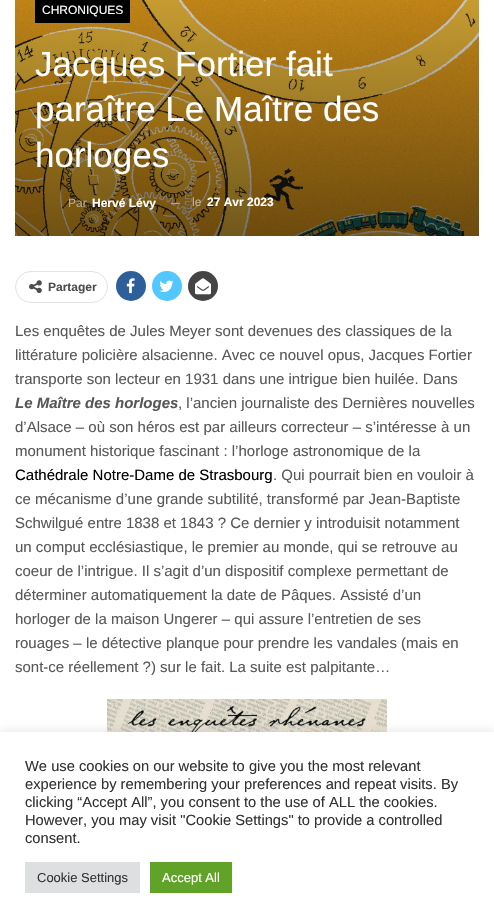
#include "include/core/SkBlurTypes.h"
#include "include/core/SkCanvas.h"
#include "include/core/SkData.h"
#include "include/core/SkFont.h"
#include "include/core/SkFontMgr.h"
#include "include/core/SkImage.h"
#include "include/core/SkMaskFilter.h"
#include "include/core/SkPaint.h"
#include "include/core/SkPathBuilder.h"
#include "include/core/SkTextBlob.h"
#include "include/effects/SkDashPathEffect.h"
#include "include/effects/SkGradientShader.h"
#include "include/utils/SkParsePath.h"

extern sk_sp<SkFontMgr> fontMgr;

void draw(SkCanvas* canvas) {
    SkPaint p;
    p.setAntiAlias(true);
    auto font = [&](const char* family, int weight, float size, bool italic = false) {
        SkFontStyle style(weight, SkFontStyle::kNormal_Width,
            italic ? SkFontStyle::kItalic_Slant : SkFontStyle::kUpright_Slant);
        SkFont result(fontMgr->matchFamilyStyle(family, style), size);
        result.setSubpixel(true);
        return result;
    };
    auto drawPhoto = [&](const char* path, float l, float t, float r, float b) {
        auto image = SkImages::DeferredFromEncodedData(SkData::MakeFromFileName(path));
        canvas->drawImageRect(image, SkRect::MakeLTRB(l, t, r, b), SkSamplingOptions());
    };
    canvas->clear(0xFFFFFFFF);
    drawPhoto("media/1.png", 15, 0, 479, 236);
    p.setColor(0xFF000000);
    canvas->drawRect(SkRect::MakeLTRB(35, 0, 130, 23), p);
    auto font1 = font("Liberation Sans", 400, 12);
    p.setColor(0xFFFFFFFF);
    canvas->drawString("CHRONIQUES", 42, 14, font1, p);
    auto font2 = font("Liberation Sans", 400, 35);
    {
        const struct { const char* s; float x, y; } items[] = {
            {"Jacques Fortier fait", 35, 76},
            {"paraître Le Maître des", 35, 121},
            {"horloges", 35, 167},
        };
        for (auto [s, x, y] : items) {
            canvas->drawString(s, x, y, font2, p);
        }
    }
    p.setColor(0xFFB9AD95);
    canvas->drawString("Par", 68, 207, font1, p);
    auto font3 = font("Liberation Sans", 700, 12);
    p.setColor(0xFFFFFFFF);
    canvas->drawString("Hervé Lévy", 92, 207, font3, p);
    p.setColor(0x6EFFFFFF);
    canvas->drawRect(SkRect::MakeLTRB(171, 203, 180, 204), p);
    p.setColor(0xFFC3B499);
    canvas->drawString("le", 192, 206, font1, p);
    p.setColor(0xFFFFFFFF);
    canvas->drawString("27 Avr 2023", 207, 206, font3, p);
    p.setStyle(SkPaint::kStroke_Style);
    p.setStrokeWidth(1);
    p.setColor(0xFFE2E2E2);
    canvas->drawRoundRect(SkRect::MakeLTRB(15.5f, 271.5f, 107.5f, 302.5f), 15.5f, 15.5f, p);
    drawPhoto("media/2.png", 29, 280, 42, 294);
    p.setStyle(SkPaint::kFill_Style);
    p.setColor(0xFF4D4D4D);
    canvas->drawString("Partager", 48, 291, font3, p);
    p.setColor(0xFF2D5F9A);
    canvas->drawCircle(131, 286, 15, p);
    drawPhoto("media/3.png", 126, 278, 135, 294);
    p.setColor(0xFF53C7FF);
    canvas->drawCircle(167, 286, 15, p);
    drawPhoto("media/4.png", 159, 280, 174, 292);
    p.setColor(0xFF444444);
    canvas->drawCircle(203, 286, 15, p);
    drawPhoto("media/5.png", 195, 278, 211, 295);
    auto font4 = font("Liberation Sans", 400, 15);
    p.setColor(0xFF585858);
    {
        const struct { const char* s; float x, y; } items[] = {
            {"Les enquêtes de Jules Meyer sont devenues des classiques de la", 15, 336},
            {"littérature policière alsacienne. Avec ce nouvel opus, Jacques Fortier", 15, 360},
            {"transporte son lecteur en 1931 dans une intrigue bien huilée. Dans", 15, 384},
        };
        for (auto [s, x, y] : items) {
            canvas->drawString(s, x, y, font4, p);
        }
    }
    auto font5 = font("Liberation Sans", 700, 15, true);
    canvas->drawString("Le Maître des horloges", 15, 408, font5, p);
    {
        const struct { const char* s; float x, y; } items[] = {
            {", l’ancien journaliste des Dernières nouvelles", 178, 408},
            {"d’Alsace – où son héros est par ailleurs correcteur – s’intéresse à un", 15, 432},
            {"monument historique fascinant : l’horloge astronomique de la", 15, 456},
        };
        for (auto [s, x, y] : items) {
            canvas->drawString(s, x, y, font4, p);
        }
    }
    p.setColor(0xFF000000);
    canvas->drawString("Cathédrale Notre-Dame de Strasbourg", 15, 480, font4, p);
    p.setColor(0xFF585858);
    {
        const struct { const char* s; float x, y; } items[] = {
            {". Qui pourrait bien en vouloir à", 273, 480},
            {"ce mécanisme d’une grande subtilité, transformé par Jean-Baptiste", 15, 504},
            {"Schwilgué entre 1838 et 1843 ? Ce dernier y introduisit notamment", 15, 528},
            {"un comput ecclésiastique, le premier au monde, qui se retrouve au", 15, 552},
            {"coeur de l’intrigue. Il s’agit d’un dispositif complexe permettant de", 15, 576},
            {"déterminer automatiquement la date de Pâques. Assisté d’un", 15, 600},
            {"horloger de la maison Ungerer – qui assure l’entretien de ses", 15, 624},
            {"rouages – le détective planque pour prendre les vandales (mais en", 15, 648},
            {"sont-ce réellement ?) sur le fait. La suite est palpitante…", 15, 672},
        };
        for (auto [s, x, y] : items) {
            canvas->drawString(s, x, y, font4, p);
        }
    }
    drawPhoto("media/6.png", 107, 699, 387, 732);
    p.setColor(0x4DACABAB);
    p.setMaskFilter(SkMaskFilter::MakeBlur(kNormal_SkBlurStyle, 5));
    canvas->drawRect(SkRect::MakeLTRB(0, 731, 494, 922), p);
    p.setMaskFilter(nullptr);
    p.setColor(0xFFFFFFFF);
    canvas->drawRect(SkRect::MakeLTRB(0, 732, 494, 923), p);
    auto font6 = font("Liberation Sans", 400, 14.7f);
    p.setColor(0xFF333333);
    {
        const struct { const char* s; float x, y; } items[] = {
            {"We use cookies on our website to give you the most relevant", 25, 771},
            {"experience by remembering your preferences and repeat visits. By", 25, 789},
            {"clicking “Accept All”, you consent to the use of ALL the cookies.", 25, 807},
            {"However, you may visit \"Cookie Settings\" to provide a controlled", 25, 825},
            {"consent.", 25, 843},
        };
        for (auto [s, x, y] : items) {
            canvas->drawString(s, x, y, font6, p);
        }
    }
    p.setColor(0xFFDEDFE0);
    canvas->drawRect(SkRect::MakeLTRB(25, 862, 140, 893), p);
    auto font7 = font("Liberation Sans", 400, 13);
    p.setColor(0xFF333333);
    canvas->drawString("Cookie Settings", 37, 882, font7, p);
    p.setColor(0xFF61A229);
    canvas->drawRect(SkRect::MakeLTRB(150, 862, 232, 893), p);
    p.setColor(0xFFFFFFFF);
    canvas->drawString("Accept All", 162, 882, font7, p);
}
